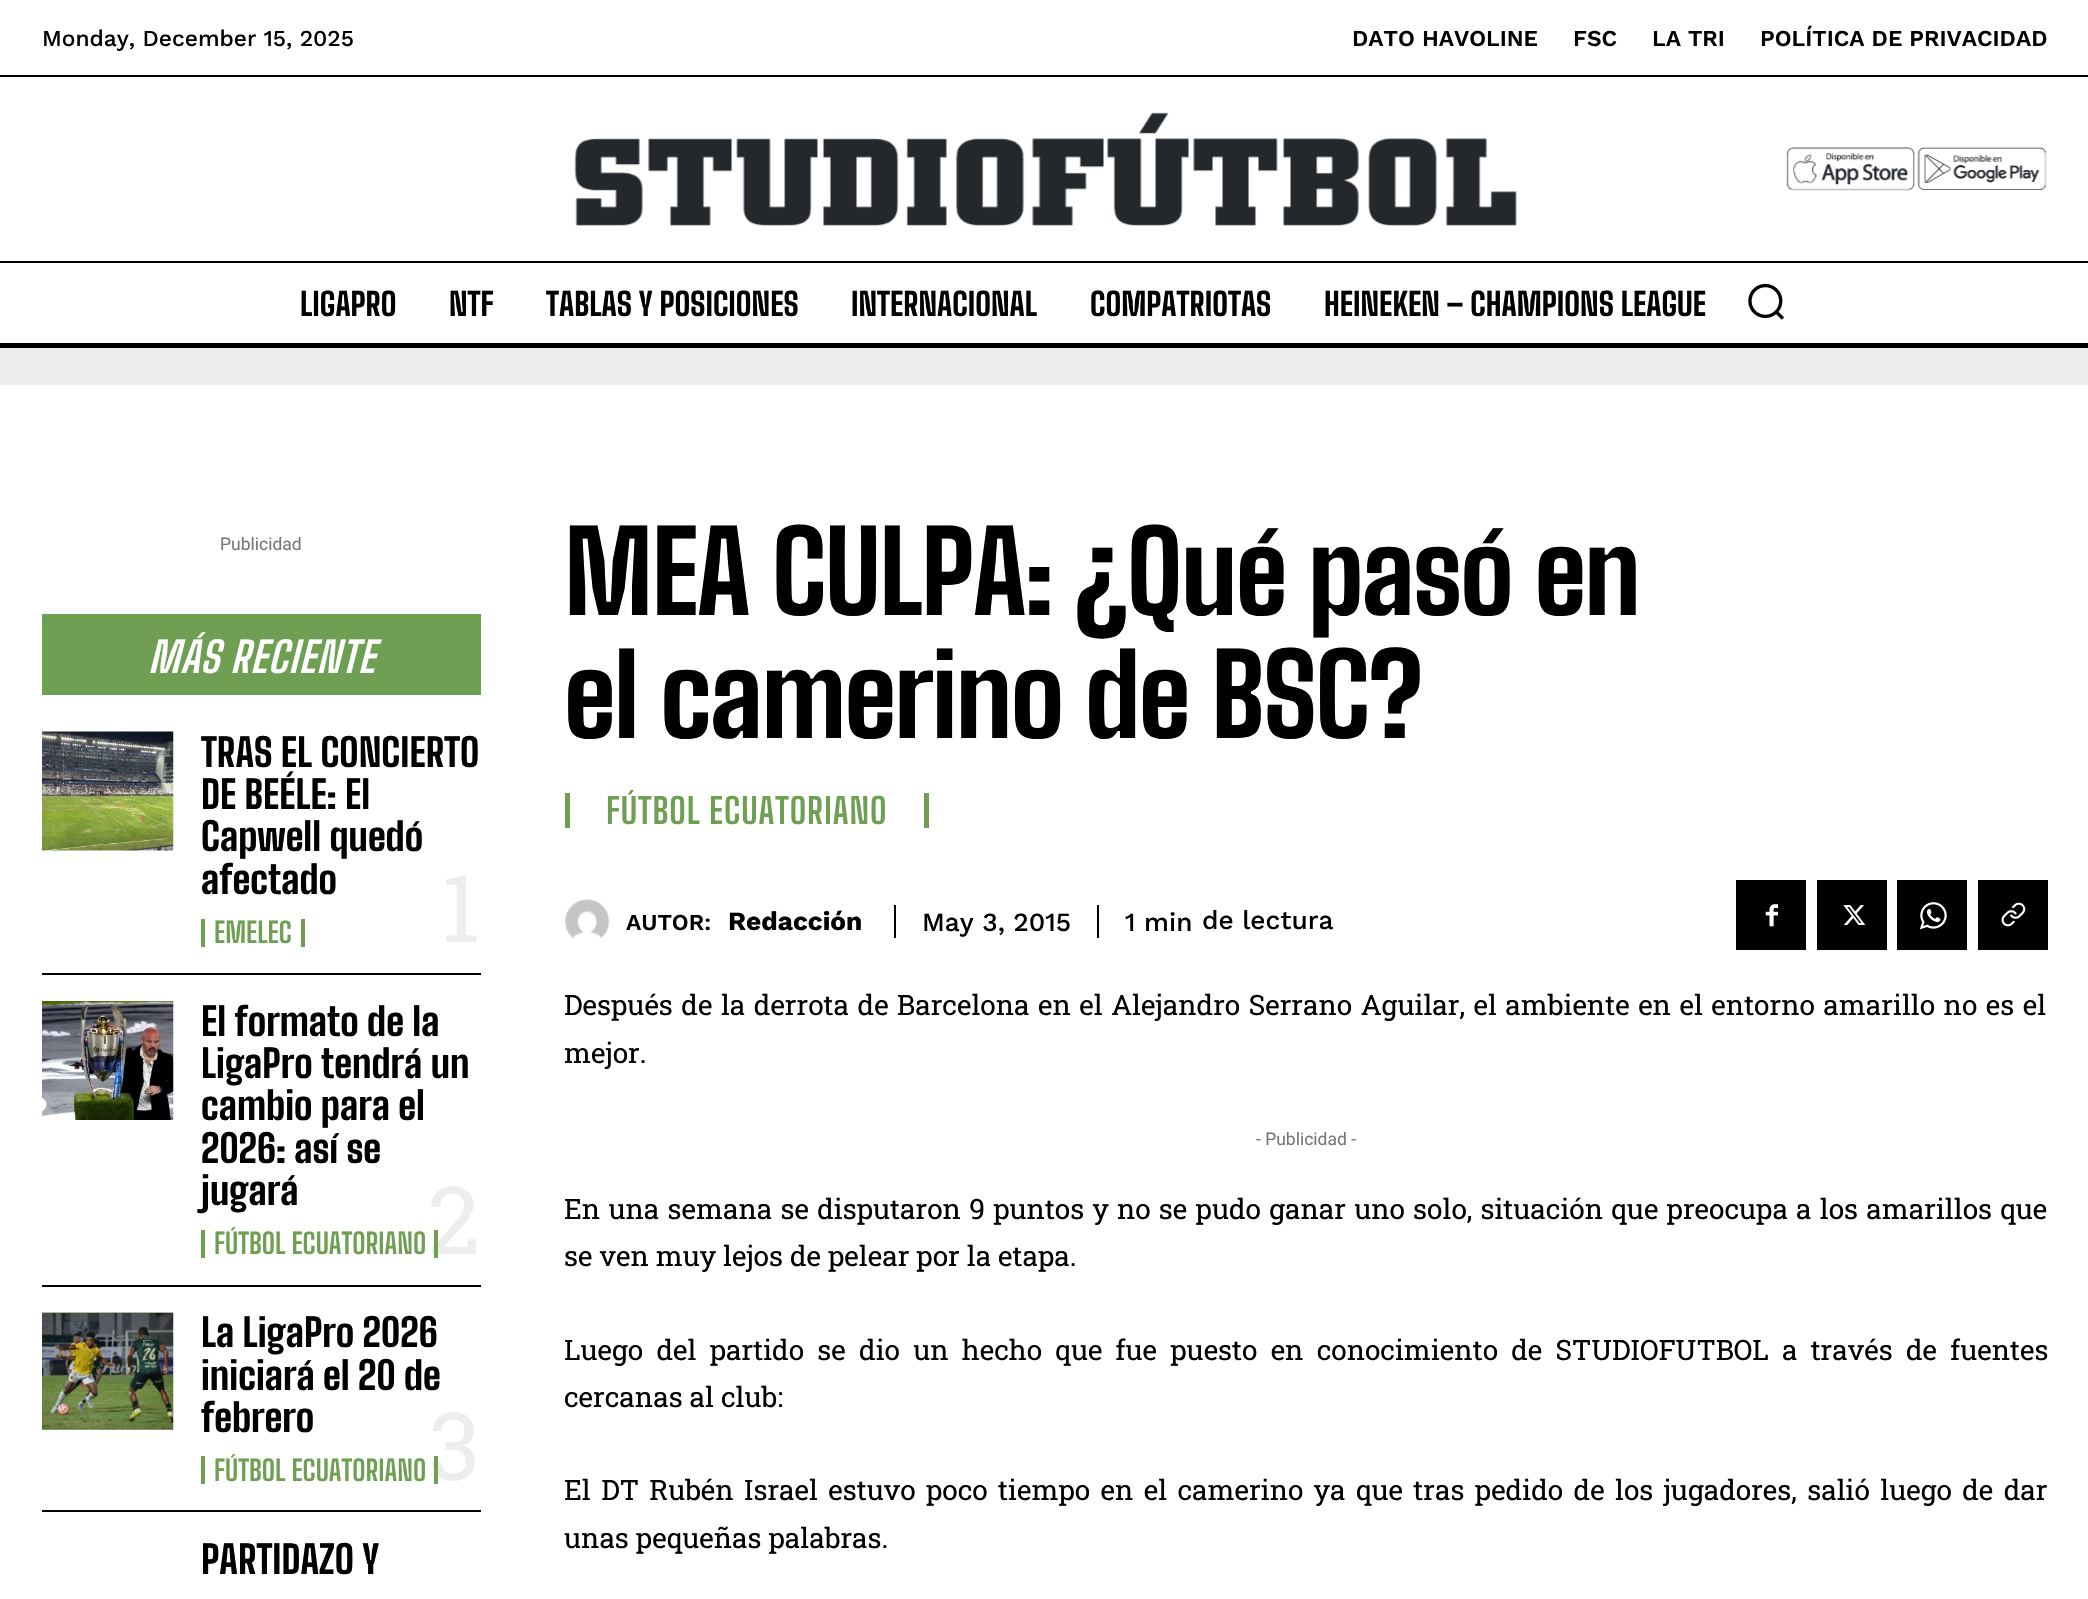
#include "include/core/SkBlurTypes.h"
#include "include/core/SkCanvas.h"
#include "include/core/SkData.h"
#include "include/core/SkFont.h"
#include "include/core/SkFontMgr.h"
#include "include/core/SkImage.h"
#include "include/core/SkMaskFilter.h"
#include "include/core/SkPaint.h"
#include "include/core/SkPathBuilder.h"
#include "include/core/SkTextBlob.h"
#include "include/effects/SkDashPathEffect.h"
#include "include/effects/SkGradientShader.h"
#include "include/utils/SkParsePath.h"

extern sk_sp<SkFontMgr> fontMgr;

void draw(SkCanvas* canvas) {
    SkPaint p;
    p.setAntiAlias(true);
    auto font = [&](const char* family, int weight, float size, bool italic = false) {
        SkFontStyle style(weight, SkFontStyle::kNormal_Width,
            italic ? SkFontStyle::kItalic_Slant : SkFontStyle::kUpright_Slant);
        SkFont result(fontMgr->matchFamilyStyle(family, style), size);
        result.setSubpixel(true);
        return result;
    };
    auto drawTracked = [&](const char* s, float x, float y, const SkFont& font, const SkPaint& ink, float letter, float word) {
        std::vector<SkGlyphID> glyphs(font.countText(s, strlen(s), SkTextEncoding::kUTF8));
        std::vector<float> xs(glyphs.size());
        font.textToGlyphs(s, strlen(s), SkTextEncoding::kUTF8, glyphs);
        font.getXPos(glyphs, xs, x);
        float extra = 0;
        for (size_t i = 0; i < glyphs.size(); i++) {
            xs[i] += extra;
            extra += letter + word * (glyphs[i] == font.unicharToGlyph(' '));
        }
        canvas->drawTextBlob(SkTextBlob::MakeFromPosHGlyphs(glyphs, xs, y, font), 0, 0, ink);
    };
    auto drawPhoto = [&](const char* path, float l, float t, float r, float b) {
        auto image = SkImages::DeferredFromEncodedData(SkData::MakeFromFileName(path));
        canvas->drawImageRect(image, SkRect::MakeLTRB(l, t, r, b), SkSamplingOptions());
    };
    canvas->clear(0xFFFFFFFF);
    auto font1 = font("Work Sans", 500, 22.75f);
    p.setColor(0xFF000000);
    canvas->drawString("Monday, December 15, 2025", 42, 46, font1, p);
    auto font2 = font("Work Sans", 600, 22.75f);
    {
        const struct { const char* s; float x, y; } items[] = {
            {"DATO HAVOLINE", 1352, 46},
            {"FSC", 1573, 46},
            {"LA TRI", 1652, 46},
            {"POLÍTICA DE PRIVACIDAD", 1760, 46},
        };
        for (auto [s, x, y] : items) {
            canvas->drawString(s, x, y, font2, p);
        }
    }
    canvas->drawRect(SkRect::MakeLTRB(0, 75, 2088, 77), p);
    drawPhoto("media/1.png", 574, 112, 1517, 226);
    drawPhoto("media/2.png", 1786, 147, 1915, 191);
    drawPhoto("media/3.png", 1917, 147, 2047, 190);
    canvas->drawRect(SkRect::MakeLTRB(0, 261, 2088, 263), p);
    canvas->drawRect(SkRect::MakeLTRB(0, 343, 2088, 348), p);
    auto font3 = font("Big Shoulders Text", 800, 31.5f);
    {
        const struct { const char* s; float x, y; } items[] = {
            {"LIGAPRO", 300, 316},
            {"NTF", 449, 316},
            {"TABLAS Y POSICIONES", 546, 316},
            {"INTERNACIONAL", 851, 316},
            {"COMPATRIOTAS", 1090, 316},
            {"HEINEKEN – CHAMPIONS LEAGUE", 1324, 316},
        };
        for (auto [s, x, y] : items) {
            canvas->drawString(s, x, y, font3, p);
        }
    }
    drawPhoto("media/4.png", 1748, 283, 1784, 320);
    p.setColor(0xFFEDEDED);
    canvas->drawRect(SkRect::MakeLTRB(0, 348, 2088, 385), p);
    auto font4 = font("Roboto", 400, 17.5f);
    p.setColor(0xFF767676);
    canvas->drawString("Publicidad", 220, 550, font4, p);
    p.setColor(0xFF6F9F53);
    canvas->drawRect(SkRect::MakeLTRB(42, 614, 481, 695), p);
    auto font5 = font("Big Shoulders Text", 700, 42, true);
    p.setColor(0xFFFFFFFF);
    drawTracked("MÁS RECIENTE", 148, 673, font5, p, 0.9f, 0);
    p.setColor(0xFF000000);
    canvas->drawRect(SkRect::MakeLTRB(42, 973, 481, 975), p);
    drawPhoto("media/5.png", 42, 731, 174, 851);
    auto font6 = font("Big Shoulders Text", 800, 38.5f);
    {
        const struct { const char* s; float x, y; } items[] = {
            {"TRAS EL CONCIERTO", 201, 767},
            {"DE BEÉLE: El", 201, 809},
            {"Capwell quedó", 201, 851},
            {"afectado", 201, 894},
        };
        for (auto [s, x, y] : items) {
            canvas->drawString(s, x, y, font6, p);
        }
    }
    p.setColor(0xFF6F9F53);
    canvas->drawRect(SkRect::MakeLTRB(301, 919, 305, 947), p);
    canvas->drawRect(SkRect::MakeLTRB(201, 919, 205, 947), p);
    auto font7 = font("Big Shoulders Text", 700, 28);
    canvas->drawString("EMELEC", 214, 943, font7, p);
    auto font8 = font("Roboto Slab", 400, 94);
    p.setColor(0xFFEDEDED);
    canvas->drawString("1", 441, 942, font8, p);
    p.setColor(0xFF000000);
    canvas->drawRect(SkRect::MakeLTRB(42, 1285, 481, 1287), p);
    drawPhoto("media/6.png", 42, 1001, 174, 1120);
    {
        const struct { const char* s; float x, y; } items[] = {
            {"El formato de la", 201, 1036},
            {"LigaPro tendrá un", 201, 1078},
            {"cambio para el", 201, 1120},
            {"2026: así se", 201, 1163},
            {"jugará", 201, 1205},
        };
        for (auto [s, x, y] : items) {
            canvas->drawString(s, x, y, font6, p);
        }
    }
    p.setColor(0xFFEDEDED);
    canvas->drawString("2", 428, 1254, font8, p);
    p.setColor(0xFF6F9F53);
    canvas->drawRect(SkRect::MakeLTRB(434, 1230, 438, 1258), p);
    canvas->drawRect(SkRect::MakeLTRB(201, 1230, 205, 1258), p);
    canvas->drawString("FÚTBOL ECUATORIANO", 214, 1254, font7, p);
    p.setColor(0xFF000000);
    canvas->drawRect(SkRect::MakeLTRB(42, 1510, 481, 1512), p);
    drawPhoto("media/7.png", 42, 1312, 174, 1430);
    {
        const struct { const char* s; float x, y; } items[] = {
            {"La LigaPro 2026", 201, 1347},
            {"iniciará el 20 de", 201, 1390},
            {"febrero", 201, 1432},
        };
        for (auto [s, x, y] : items) {
            canvas->drawString(s, x, y, font6, p);
        }
    }
    p.setColor(0xFFEDEDED);
    canvas->drawString("3", 429, 1480, font8, p);
    p.setColor(0xFF6F9F53);
    canvas->drawRect(SkRect::MakeLTRB(434, 1456, 438, 1484), p);
    canvas->drawRect(SkRect::MakeLTRB(201, 1456, 205, 1484), p);
    canvas->drawString("FÚTBOL ECUATORIANO", 214, 1481, font7, p);
    p.setColor(0xFF000000);
    canvas->drawString("PARTIDAZO Y", 201, 1574, font6, p);
    auto font9 = font("Big Shoulders Text", 800, 112);
    drawTracked("MEA CULPA: ¿Qué pasó en", 564, 615, font9, p, -1.75f, 0);
    drawTracked("el camerino de BSC?", 564, 738, font9, p, -1.75f, 0);
    p.setColor(0xFF6F9F53);
    canvas->drawRect(SkRect::MakeLTRB(924, 793, 929, 828), p);
    canvas->drawRect(SkRect::MakeLTRB(565, 793, 570, 828), p);
    auto font10 = font("Big Shoulders Text", 700, 35);
    drawTracked("FÚTBOL ECUATORIANO", 606, 824, font10, p, 0.9f, 0);
    drawPhoto("media/8.png", 565, 899, 610, 939);
    p.setColor(0xFF000000);
    canvas->drawString("AUTOR:", 626, 930, font2, p);
    auto font11 = font("Work Sans", 700, 26.25f);
    canvas->drawString("Redacción", 728, 930, font11, p);
    canvas->drawRect(SkRect::MakeLTRB(1097, 905, 1099, 938), p);
    canvas->drawRect(SkRect::MakeLTRB(894, 905, 896, 938), p);
    auto font12 = font("Work Sans", 500, 26.25f);
    {
        const struct { const char* s; float x, y; } items[] = {
            {"May 3, 2015", 922, 931},
            {"1 min", 1125, 931},
            {"de lectura", 1202, 929},
        };
        for (auto [s, x, y] : items) {
            canvas->drawString(s, x, y, font12, p);
        }
    }
    canvas->drawRect(SkRect::MakeLTRB(1736, 880, 1806, 950), p);
    drawPhoto("media/9.png", 1765, 904, 1778, 927);
    canvas->drawRect(SkRect::MakeLTRB(1817, 880, 1887, 950), p);
    drawPhoto("media/10.png", 1843, 905, 1866, 925);
    canvas->drawRect(SkRect::MakeLTRB(1897, 880, 1967, 950), p);
    drawPhoto("media/11.png", 1919, 902, 1947, 930);
    canvas->drawRect(SkRect::MakeLTRB(1978, 880, 2048, 950), p);
    drawPhoto("media/12.png", 2001, 902, 2026, 927);
    auto font13 = font("Roboto Slab", 400, 28);
    drawTracked("Después de la derrota de Barcelona en el Alejandro Serrano Aguilar, el ambiente en el entorno amarillo no es el", 564, 1015, font13, p, 0, 1.5f);
    canvas->drawString("mejor.", 564, 1063, font13, p);
    p.setColor(0xFF767676);
    canvas->drawString("- Publicidad -", 1256, 1145, font4, p);
    p.setColor(0xFF000000);
    drawTracked("En una semana se disputaron 9 puntos y no se pudo ganar uno solo, situación que preocupa a los amarillos que", 564, 1219, font13, p, 0, 1.25f);
    canvas->drawString("se ven muy lejos de pelear por la etapa.", 564, 1266, font13, p);
    drawTracked("Luego del partido se dio un hecho que fue puesto en conocimiento de STUDIOFUTBOL a través de fuentes", 564, 1360, font13, p, 0, 6.25f);
    canvas->drawString("cercanas al club:", 564, 1407, font13, p);
    drawTracked("El DT Rubén Israel estuvo poco tiempo en el camerino ya que tras pedido de los jugadores, salió luego de dar", 564, 1500, font13, p, 0, 3.4f);
    canvas->drawString("unas pequeñas palabras.", 564, 1548, font13, p);
}
